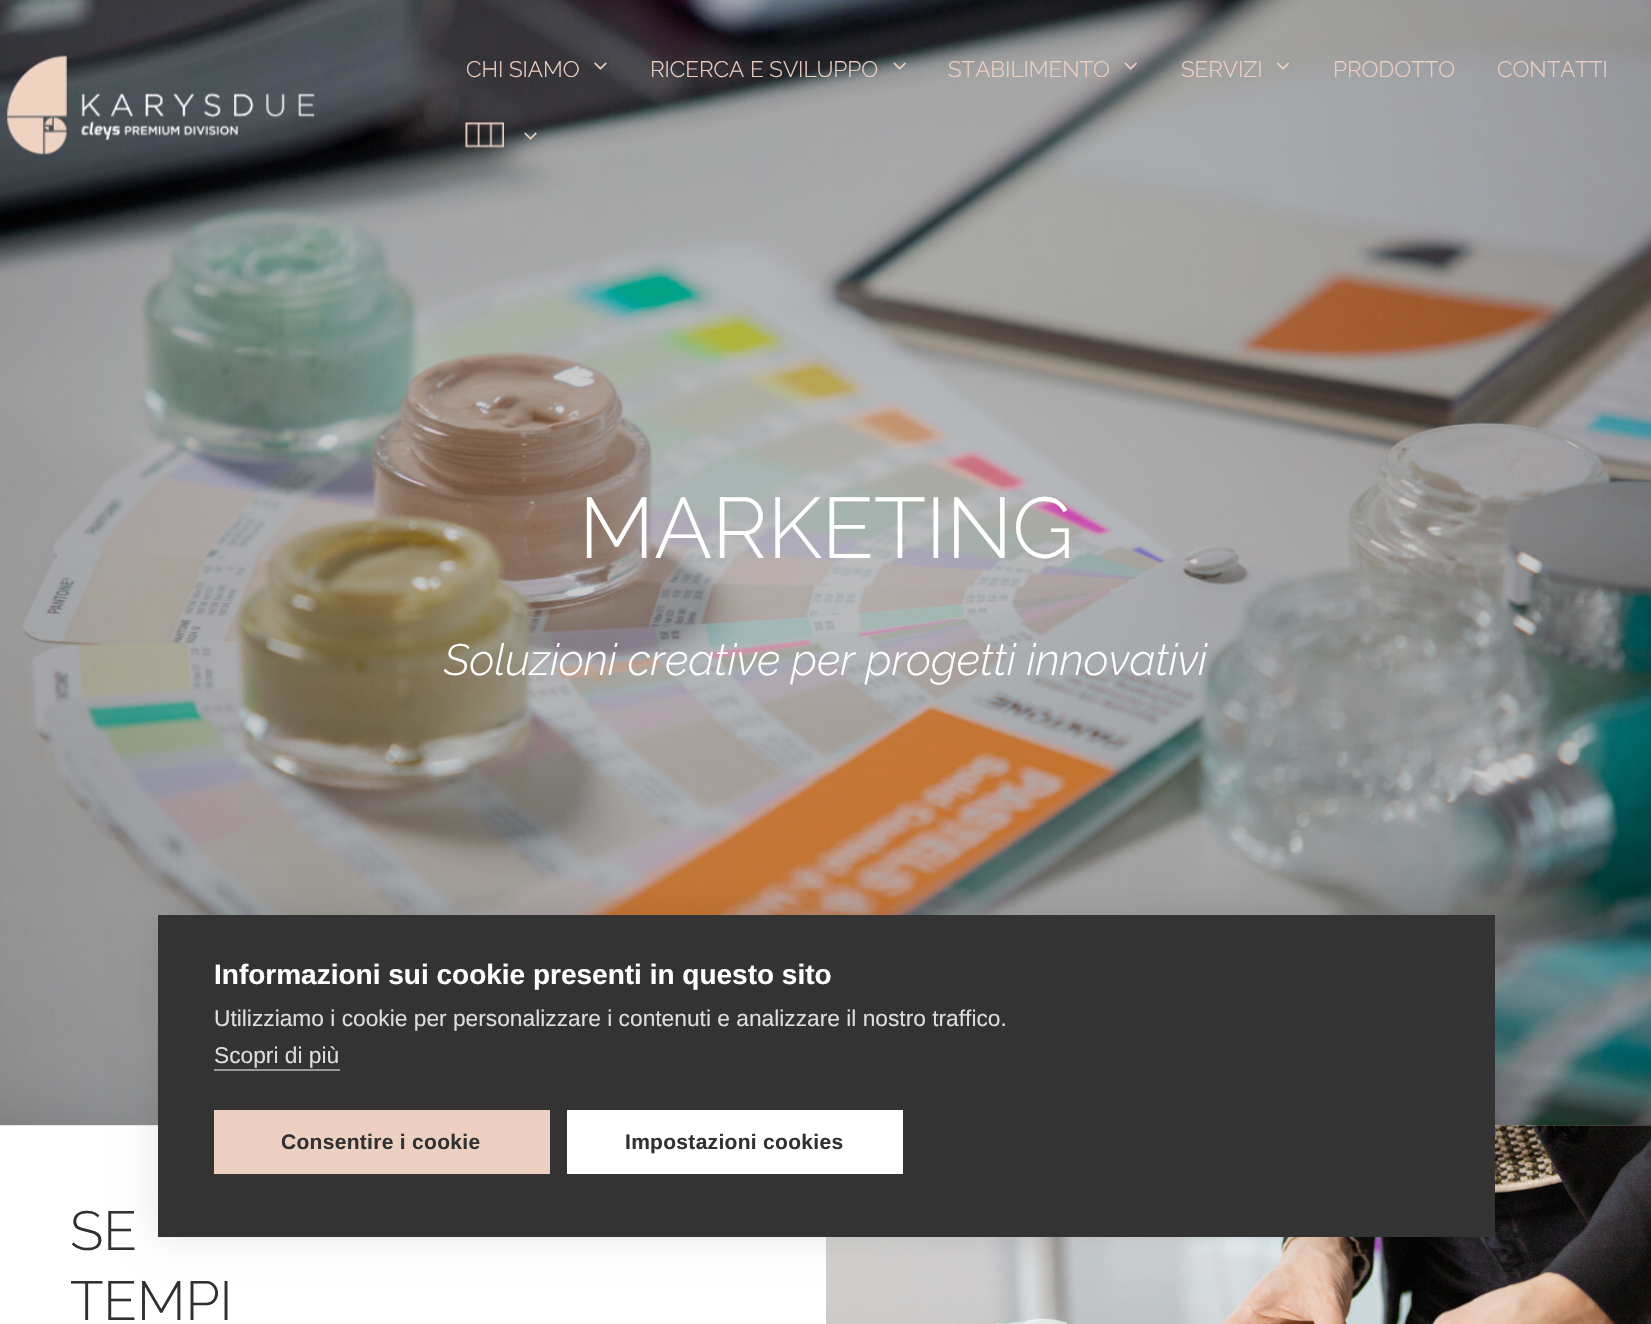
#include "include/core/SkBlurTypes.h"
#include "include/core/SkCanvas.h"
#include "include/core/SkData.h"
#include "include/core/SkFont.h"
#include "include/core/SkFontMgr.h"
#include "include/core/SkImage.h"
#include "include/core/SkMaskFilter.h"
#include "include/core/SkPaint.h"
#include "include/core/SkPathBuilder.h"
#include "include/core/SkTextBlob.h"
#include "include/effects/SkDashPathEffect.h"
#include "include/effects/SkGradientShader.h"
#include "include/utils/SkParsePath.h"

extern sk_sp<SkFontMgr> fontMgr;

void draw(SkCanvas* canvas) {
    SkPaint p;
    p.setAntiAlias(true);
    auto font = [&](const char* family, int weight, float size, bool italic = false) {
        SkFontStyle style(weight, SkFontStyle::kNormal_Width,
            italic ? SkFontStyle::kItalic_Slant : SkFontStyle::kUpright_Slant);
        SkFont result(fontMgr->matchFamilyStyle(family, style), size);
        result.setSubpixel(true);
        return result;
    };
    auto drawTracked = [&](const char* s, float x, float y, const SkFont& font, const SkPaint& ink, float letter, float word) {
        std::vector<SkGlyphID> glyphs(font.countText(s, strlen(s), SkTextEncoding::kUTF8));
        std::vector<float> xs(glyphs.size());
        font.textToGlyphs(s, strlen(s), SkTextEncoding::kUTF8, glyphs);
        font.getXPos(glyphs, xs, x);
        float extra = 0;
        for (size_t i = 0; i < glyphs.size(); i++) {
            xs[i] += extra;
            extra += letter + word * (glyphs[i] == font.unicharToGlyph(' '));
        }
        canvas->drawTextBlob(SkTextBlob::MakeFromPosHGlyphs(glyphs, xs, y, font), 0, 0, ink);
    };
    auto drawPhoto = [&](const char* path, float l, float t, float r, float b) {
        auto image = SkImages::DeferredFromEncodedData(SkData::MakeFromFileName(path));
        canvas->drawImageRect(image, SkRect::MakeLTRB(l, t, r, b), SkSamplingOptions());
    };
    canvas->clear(0xFFFFFFFF);
    drawPhoto("media/8.png", 0, 0, 1651, 1126);
    drawPhoto("media/1.png", 7, 55, 315, 155);
    auto font1 = font("Raleway", 300, 22.4f);
    p.setColor(0xFFEED0C3);
    canvas->drawString("CHI SIAMO", 466, 77, font1, p);
    drawPhoto("media/2.png", 594, 62, 607, 70);
    canvas->drawString("RICERCA E SVILUPPO", 650, 77, font1, p);
    drawPhoto("media/3.png", 893, 62, 906, 70);
    canvas->drawString("STABILIMENTO", 948, 77, font1, p);
    drawPhoto("media/4.png", 1124, 62, 1137, 70);
    canvas->drawString("SERVIZI", 1181, 77, font1, p);
    drawPhoto("media/5.png", 1276, 62, 1290, 70);
    canvas->drawString("PRODOTTO", 1333, 77, font1, p);
    canvas->drawString("CONTATTI", 1497, 77, font1, p);
    drawPhoto("media/6.png", 465, 122, 504, 148);
    drawPhoto("media/7.png", 524, 132, 537, 140);
    auto font2 = font("Raleway", 300, 85.5f);
    p.setColor(0xFFFFFFFF);
    canvas->drawString("MARKETING", 579, 558, font2, p);
    auto font3 = font("Raleway", 300, 43.75f, true);
    canvas->drawString("Soluzioni creative per progetti innovativi", 444, 675, font3, p);
    auto font4 = font("Raleway", 300, 55);
    p.setColor(0xFF303133);
    canvas->drawString("SE", 70, 1250, font4, p);
    canvas->drawString("TEMPI", 70, 1320, font4, p);
    drawPhoto("media/9.png", 826, 1125, 1651, 1324);
    p.setColor(0x1A000000);
    p.setMaskFilter(SkMaskFilter::MakeBlur(kNormal_SkBlurStyle, 17.5f));
    canvas->drawRect(SkRect::MakeLTRB(158, 915, 1495, 1237), p);
    p.setMaskFilter(nullptr);
    p.setColor(0xFF333333);
    canvas->drawRect(SkRect::MakeLTRB(158, 915, 1495, 1237), p);
    auto font5 = font("Liberation Sans", 700, 28);
    p.setColor(0xFFFFFFFF);
    canvas->drawString("Informazioni sui cookie presenti in questo sito", 214, 984, font5, p);
    auto font6 = font("Liberation Sans", 400, 22.75f);
    p.setColor(0xFFDDDDDD);
    canvas->drawString("Utilizziamo i cookie per personalizzare i contenuti e analizzare il nostro traffico.", 214, 1026, font6, p);
    canvas->drawString("Scopri di più", 214, 1063, font6, p);
    p.setColor(0xFF999999);
    canvas->drawRect(SkRect::MakeLTRB(214, 1069, 340, 1071), p);
    p.setColor(0xFFEED0C3);
    canvas->drawRect(SkRect::MakeLTRB(214, 1110, 550, 1174), p);
    auto font7 = font("Liberation Sans", 700, 21);
    p.setColor(0xFF303133);
    drawTracked("Consentire i cookie", 281, 1149, font7, p, 0.3f, 0);
    p.setColor(0xFFFFFFFF);
    canvas->drawRect(SkRect::MakeLTRB(567, 1110, 903, 1174), p);
    p.setColor(0xFF303133);
    drawTracked("Impostazioni cookies", 625, 1149, font7, p, 0.3f, 0);
}
